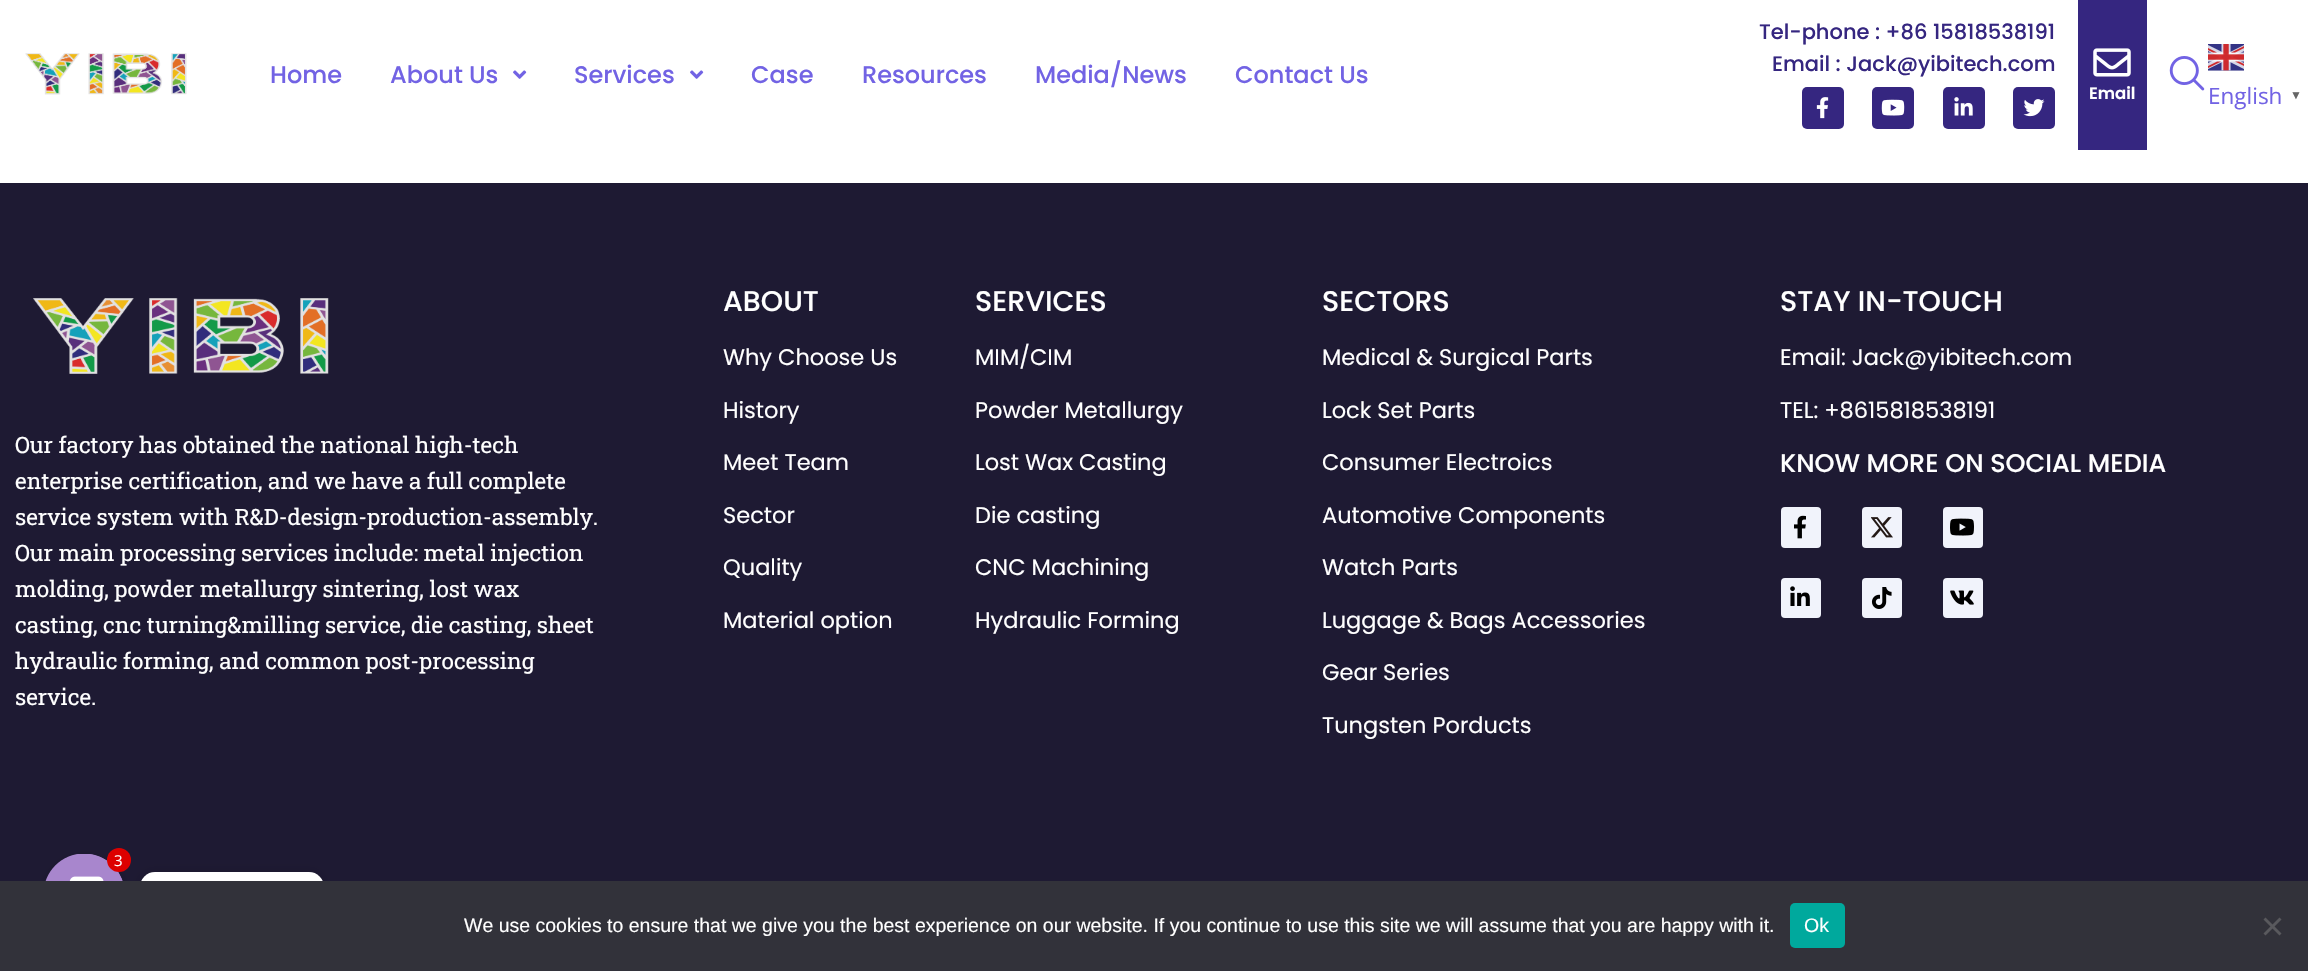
#include "include/core/SkBlurTypes.h"
#include "include/core/SkCanvas.h"
#include "include/core/SkData.h"
#include "include/core/SkFont.h"
#include "include/core/SkFontMgr.h"
#include "include/core/SkImage.h"
#include "include/core/SkMaskFilter.h"
#include "include/core/SkPaint.h"
#include "include/core/SkPathBuilder.h"
#include "include/core/SkTextBlob.h"
#include "include/effects/SkDashPathEffect.h"
#include "include/effects/SkGradientShader.h"
#include "include/utils/SkParsePath.h"

extern sk_sp<SkFontMgr> fontMgr;

void draw(SkCanvas* canvas) {
    SkPaint p;
    p.setAntiAlias(true);
    auto font = [&](const char* family, int weight, float size, bool italic = false) {
        SkFontStyle style(weight, SkFontStyle::kNormal_Width,
            italic ? SkFontStyle::kItalic_Slant : SkFontStyle::kUpright_Slant);
        SkFont result(fontMgr->matchFamilyStyle(family, style), size);
        result.setSubpixel(true);
        return result;
    };
    auto drawPhoto = [&](const char* path, float l, float t, float r, float b) {
        auto image = SkImages::DeferredFromEncodedData(SkData::MakeFromFileName(path));
        canvas->drawImageRect(image, SkRect::MakeLTRB(l, t, r, b), SkSamplingOptions());
    };
    canvas->clear(0xFFFFFFFF);
    drawPhoto("media/1.png", 25, 53, 187, 95);
    auto font1 = font("Poppins", 500, 24);
    p.setColor(0xFF7263E4);
    canvas->drawString("Home", 270, 83, font1, p);
    canvas->drawString("About Us", 390, 83, font1, p);
    drawPhoto("media/2.png", 513, 70, 527, 79);
    canvas->drawString("Services", 574, 83, font1, p);
    drawPhoto("media/2.png", 690, 70, 704, 79);
    {
        const struct { const char* s; float x, y; } items[] = {
            {"Case", 751, 83},
            {"Resources", 862, 83},
            {"Media/News", 1035, 83},
            {"Contact Us", 1235, 83},
        };
        for (auto [s, x, y] : items) {
            canvas->drawString(s, x, y, font1, p);
        }
    }
    auto font2 = font("Poppins", 500, 21);
    p.setColor(0xFF352680);
    canvas->drawString("Tel-phone : +86 15818538191", 1759, 39, font2, p);
    canvas->drawString("Email : Jack@yibitech.com", 1772, 71, font2, p);
    canvas->drawRoundRect(SkRect::MakeLTRB(1802, 87, 1844, 129), 5, 5, p);
    drawPhoto("media/3.png", 1816, 97, 1829, 119);
    canvas->drawRoundRect(SkRect::MakeLTRB(1872, 87, 1914, 129), 5, 5, p);
    drawPhoto("media/4.png", 1881, 99, 1905, 116);
    canvas->drawRoundRect(SkRect::MakeLTRB(1943, 87, 1985, 129), 5, 5, p);
    drawPhoto("media/5.png", 1954, 97, 1973, 116);
    canvas->drawRoundRect(SkRect::MakeLTRB(2013, 87, 2055, 129), 5, 5, p);
    drawPhoto("media/6.png", 2023, 99, 2045, 117);
    drawPhoto("media/7.png", 2169, 56, 2205, 91);
    canvas->drawRect(SkRect::MakeLTRB(2078, 0, 2147, 150), p);
    drawPhoto("media/8.png", 2093, 48, 2131, 77);
    auto font3 = font("Poppins", 600, 16.5f);
    p.setColor(0xFFFFFFFF);
    canvas->drawString("Email", 2089, 99, font3, p);
    drawPhoto("media/9.png", 2208, 44, 2244, 71);
    auto font4 = font("Open Sans", 400, 22.5f);
    p.setColor(0xFF7263E4);
    canvas->drawString("English", 2208, 104, font4, p);
    auto font5 = font("Liberation Sans", 700, 12);
    p.setColor(0xFF666666);
    canvas->drawString("▼", 2290, 99, font5, p);
    p.setColor(0xFF1E1A33);
    canvas->drawRect(SkRect::MakeLTRB(0, 183, 2308, 881), p);
    drawPhoto("media/10.png", 33, 298, 329, 374);
    auto font6 = font("Roboto Slab", 400, 22.5f);
    p.setColor(0xFFFFFFFF);
    {
        const struct { const char* s; float x, y; } items[] = {
            {"Our factory has obtained the national high-tech", 15, 453},
            {"enterprise certification, and we have a full complete", 15, 489},
            {"service system with R&D-design-production-assembly.", 15, 525},
            {"Our main processing services include: metal injection", 15, 561},
            {"molding, powder metallurgy sintering, lost wax", 15, 597},
            {"casting, cnc turning&milling service, die casting, sheet", 15, 633},
            {"hydraulic forming, and common post-processing", 15, 669},
            {"service.", 15, 705},
        };
        for (auto [s, x, y] : items) {
            canvas->drawString(s, x, y, font6, p);
        }
    }
    auto font7 = font("Poppins", 500, 28.5f);
    canvas->drawString("ABOUT", 723, 311, font7, p);
    auto font8 = font("Poppins", 400, 22.5f);
    {
        const struct { const char* s; float x, y; } items[] = {
            {"Why Choose Us", 723, 365},
            {"History", 723, 418},
            {"Meet Team", 723, 470},
            {"Sector", 723, 523},
            {"Quality", 723, 575},
            {"Material option", 723, 628},
        };
        for (auto [s, x, y] : items) {
            canvas->drawString(s, x, y, font8, p);
        }
    }
    canvas->drawString("SERVICES", 975, 311, font7, p);
    {
        const struct { const char* s; float x, y; } items[] = {
            {"MIM/CIM", 975, 365},
            {"Powder Metallurgy", 975, 418},
            {"Lost Wax Casting", 975, 470},
            {"Die casting", 975, 523},
            {"CNC Machining", 975, 575},
            {"Hydraulic Forming", 975, 628},
        };
        for (auto [s, x, y] : items) {
            canvas->drawString(s, x, y, font8, p);
        }
    }
    canvas->drawString("SECTORS", 1322, 311, font7, p);
    {
        const struct { const char* s; float x, y; } items[] = {
            {"Medical & Surgical Parts", 1322, 365},
            {"Lock Set Parts", 1322, 418},
            {"Consumer Electroics", 1322, 470},
            {"Automotive Components", 1322, 523},
            {"Watch Parts", 1322, 575},
            {"Luggage & Bags Accessories", 1322, 628},
            {"Gear Series", 1322, 680},
            {"Tungsten Porducts", 1322, 733},
        };
        for (auto [s, x, y] : items) {
            canvas->drawString(s, x, y, font8, p);
        }
    }
    canvas->drawString("STAY IN-TOUCH", 1780, 311, font7, p);
    canvas->drawString("Email: Jack@yibitech.com", 1780, 365, font8, p);
    canvas->drawString("TEL: +8615818538191", 1780, 418, font8, p);
    auto font9 = font("Poppins", 500, 25.5f);
    canvas->drawString("KNOW MORE ON SOCIAL MEDIA", 1780, 472, font9, p);
    p.setColor(0xFFF1F3FB);
    canvas->drawRoundRect(SkRect::MakeLTRB(1781, 507, 1821, 548), 4, 4, p);
    drawPhoto("media/11.png", 1794, 515, 1806, 539);
    canvas->drawRoundRect(SkRect::MakeLTRB(1862, 507, 1902, 548), 4, 4, p);
    drawPhoto("media/12.png", 1871, 517, 1893, 538);
    canvas->drawRoundRect(SkRect::MakeLTRB(1943, 507, 1983, 548), 4, 4, p);
    drawPhoto("media/13.png", 1950, 518, 1974, 536);
    canvas->drawRoundRect(SkRect::MakeLTRB(1781, 578, 1821, 618), 4, 4, p);
    drawPhoto("media/14.png", 1790, 586, 1810, 606);
    canvas->drawRoundRect(SkRect::MakeLTRB(1862, 578, 1902, 618), 4, 4, p);
    drawPhoto("media/15.png", 1871, 587, 1892, 609);
    canvas->drawRoundRect(SkRect::MakeLTRB(1943, 578, 1983, 618), 4, 4, p);
    drawPhoto("media/16.png", 1950, 590, 1974, 605);
    p.setColor(0x40000000);
    p.setMaskFilter(SkMaskFilter::MakeBlur(kNormal_SkBlurStyle, 4.5f));
    canvas->drawRoundRect(SkRect::MakeLTRB(44, 858, 125, 939), 40.5f, 40.5f, p);
    p.setMaskFilter(nullptr);
    p.setColor(0x26000000);
    p.setMaskFilter(SkMaskFilter::MakeBlur(kNormal_SkBlurStyle, 6));
    canvas->drawRoundRect(SkRect::MakeLTRB(140, 873, 324, 920), 15, 15, p);
    p.setMaskFilter(nullptr);
    p.setColor(0xFFA886CD);
    canvas->drawCircle(84.5f, 894.5f, 40.5f, p);
    drawPhoto("media/17.png", 45, 854, 123, 881);
    p.setColor(0xFFFFFFFF);
    canvas->drawRoundRect(SkRect::MakeLTRB(140, 872, 324, 918), 15, 15, p);
    p.setColor(0xFFDD0000);
    canvas->drawCircle(119, 860, 12, p);
    auto font10 = font("Open Sans", 400, 15);
    p.setColor(0xFFFFFFFF);
    canvas->drawString("3", 114, 866, font10, p);
    p.setColor(0xFF32323A);
    canvas->drawRect(SkRect::MakeLTRB(0, 881, 2308, 971), p);
    auto font11 = font("Liberation Sans", 400, 19.5f);
    p.setColor(0xFFFFFFFF);
    canvas->drawString("We use cookies to ensure that we give you the best experience on our website. If you continue to use this site we will assume that you are happy with it.", 464, 932, font11, p);
    p.setColor(0xFF00A99D);
    canvas->drawRoundRect(SkRect::MakeLTRB(1790, 903, 1845, 948), 5, 5, p);
    p.setColor(0xFFFFFFFF);
    canvas->drawString("Ok", 1804, 932, font11, p);
    p.setColor(0xFF59595D);
    canvas->drawPath(SkPathBuilder().moveTo(2279.5f, 917.5f).lineTo(2281.5f, 919.5f).lineTo(2265.5f, 935.5f).lineTo(2263.5f, 933.5f).close().detach(), p);
    canvas->drawPath(SkPathBuilder().moveTo(2263.5f, 919.5f).lineTo(2265.5f, 917.5f).lineTo(2281.5f, 933.5f).lineTo(2279.5f, 935.5f).close().detach(), p);
}
